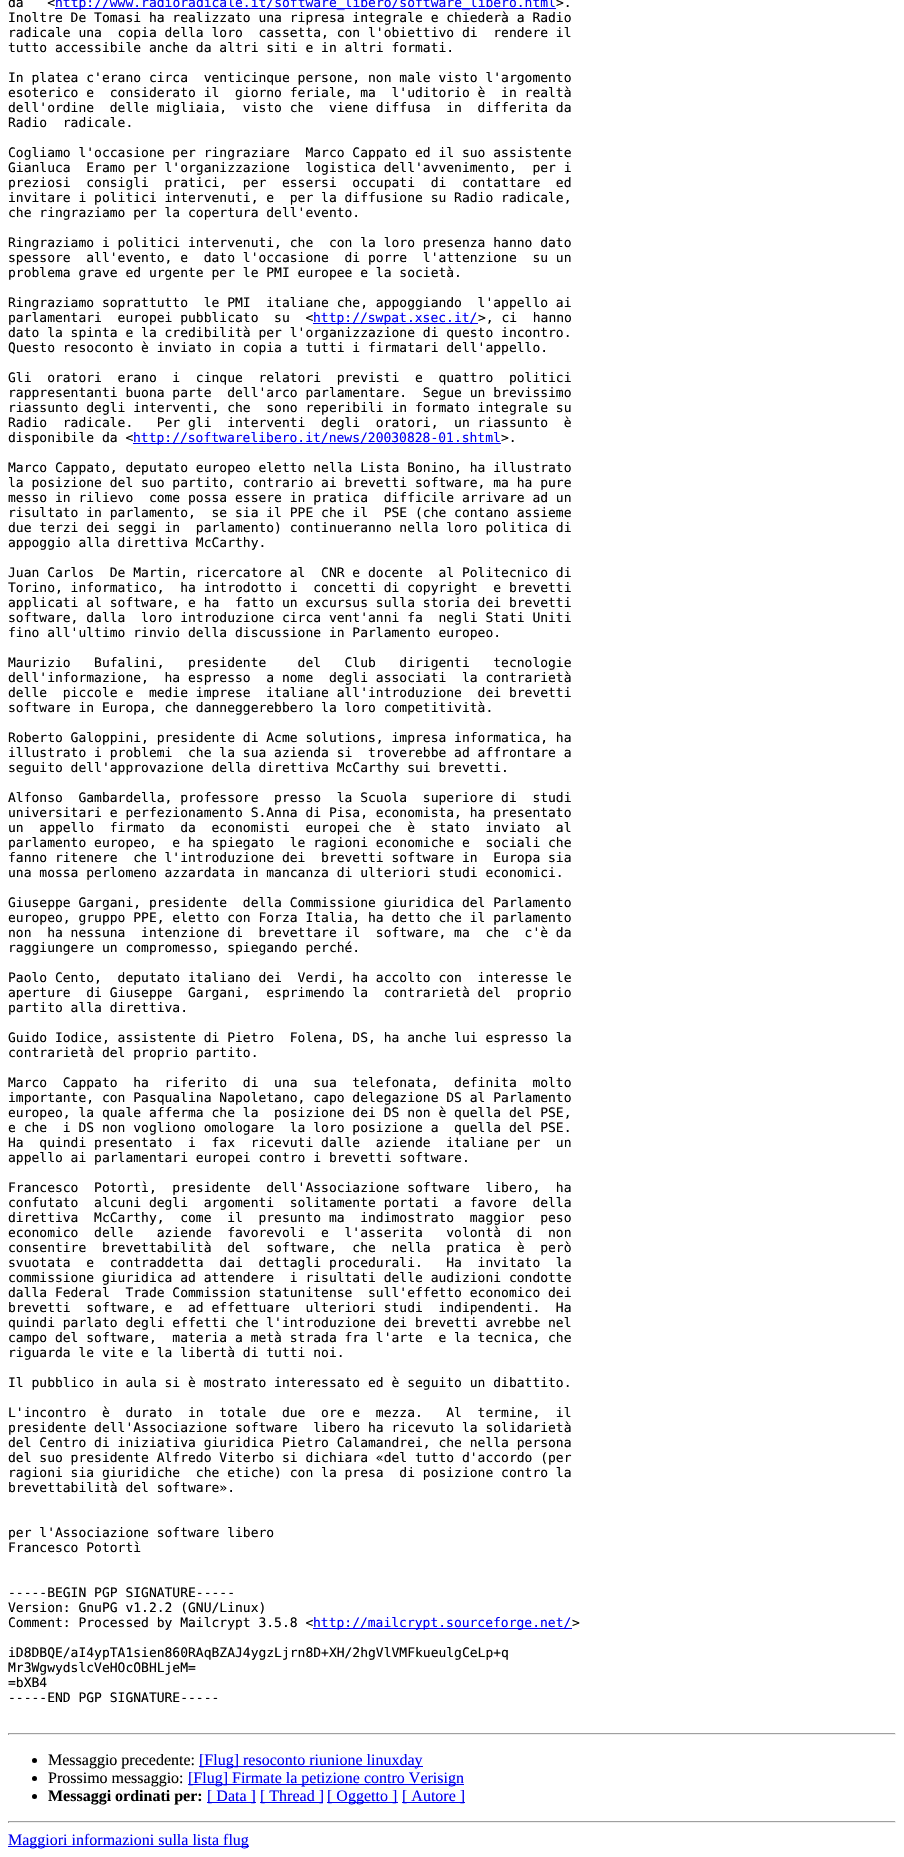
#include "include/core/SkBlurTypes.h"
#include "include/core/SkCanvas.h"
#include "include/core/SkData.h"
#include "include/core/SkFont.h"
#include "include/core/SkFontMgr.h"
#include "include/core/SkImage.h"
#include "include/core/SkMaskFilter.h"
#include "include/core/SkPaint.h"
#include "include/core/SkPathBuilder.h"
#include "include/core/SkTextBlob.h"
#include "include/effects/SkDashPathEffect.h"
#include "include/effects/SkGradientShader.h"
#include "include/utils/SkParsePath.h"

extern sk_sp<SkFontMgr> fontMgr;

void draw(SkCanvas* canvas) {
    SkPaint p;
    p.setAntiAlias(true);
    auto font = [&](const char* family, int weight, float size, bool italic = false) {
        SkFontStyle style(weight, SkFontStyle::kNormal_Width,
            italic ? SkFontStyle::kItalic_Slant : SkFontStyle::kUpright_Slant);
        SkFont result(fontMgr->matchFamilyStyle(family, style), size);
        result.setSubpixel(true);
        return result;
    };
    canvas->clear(0xFFFFFFFF);
    auto font1 = font("DejaVu Sans Mono", 400, 13);
    p.setColor(0xFF000000);
    canvas->drawString("da   <", 8, 7, font1, p);
    p.setColor(0xFF0000EE);
    canvas->drawRect(SkRect::MakeLTRB(55, 8, 556, 9), p);
    canvas->drawString("http://www.radioradicale.it/software_libero/software_libero.html", 55, 7, font1, p);
    p.setColor(0xFF000000);
    {
        const struct { const char* s; float x, y; } items[] = {
            {">.", 556, 7},
            {"Inoltre De Tomasi ha realizzato una ripresa integrale e chiederà a Radio", 8, 22},
            {"radicale una  copia della loro  cassetta, con l'obiettivo di  rendere il", 8, 37},
            {"tutto accessibile anche da altri siti e in altri formati.", 8, 52},
            {"In platea c'erano circa  venticinque persone, non male visto l'argomento", 8, 82},
            {"esoterico e  considerato il  giorno feriale, ma  l'uditorio è  in realtà", 8, 97},
            {"dell'ordine  delle migliaia,  visto che  viene diffusa  in  differita da", 8, 112},
            {"Radio  radicale.", 8, 127},
            {"Cogliamo l'occasione per ringraziare  Marco Cappato ed il suo assistente", 8, 157},
            {"Gianluca  Eramo per l'organizzazione  logistica dell'avvenimento,  per i", 8, 172},
            {"preziosi  consigli  pratici,  per  essersi  occupati  di  contattare  ed", 8, 187},
            {"invitare i politici intervenuti, e  per la diffusione su Radio radicale,", 8, 202},
            {"che ringraziamo per la copertura dell'evento.", 8, 217},
            {"Ringraziamo i politici intervenuti, che  con la loro presenza hanno dato", 8, 247},
            {"spessore  all'evento, e  dato l'occasione  di porre  l'attenzione  su un", 8, 262},
            {"problema grave ed urgente per le PMI europee e la società.", 8, 277},
            {"Ringraziamo soprattutto  le PMI  italiane che, appoggiando  l'appello ai", 8, 307},
            {"parlamentari  europei pubblicato  su  <", 8, 322},
        };
        for (auto [s, x, y] : items) {
            canvas->drawString(s, x, y, font1, p);
        }
    }
    p.setColor(0xFF0000EE);
    canvas->drawRect(SkRect::MakeLTRB(313, 323, 478, 324), p);
    canvas->drawString("http://swpat.xsec.it/", 313, 322, font1, p);
    p.setColor(0xFF000000);
    {
        const struct { const char* s; float x, y; } items[] = {
            {">, ci  hanno", 478, 322},
            {"dato la spinta e la credibilità per l'organizzazione di questo incontro.", 8, 337},
            {"Questo resoconto è inviato in copia a tutti i firmatari dell'appello.", 8, 352},
            {"Gli  oratori  erano  i  cinque  relatori  previsti  e  quattro  politici", 8, 382},
            {"rappresentanti buona parte  dell'arco parlamentare.  Segue un brevissimo", 8, 397},
            {"riassunto degli interventi, che  sono reperibili in formato integrale su", 8, 412},
            {"Radio  radicale.   Per gli  interventi  degli  oratori,  un riassunto  è", 8, 427},
            {"disponibile da <", 8, 442},
        };
        for (auto [s, x, y] : items) {
            canvas->drawString(s, x, y, font1, p);
        }
    }
    p.setColor(0xFF0000EE);
    canvas->drawRect(SkRect::MakeLTRB(133, 443, 501, 444), p);
    canvas->drawString("http://softwarelibero.it/news/20030828-01.shtml", 133, 442, font1, p);
    p.setColor(0xFF000000);
    {
        const struct { const char* s; float x, y; } items[] = {
            {">.", 501, 442},
            {"Marco Cappato, deputato europeo eletto nella Lista Bonino, ha illustrato", 8, 472},
            {"la posizione del suo partito, contrario ai brevetti software, ma ha pure", 8, 487},
            {"messo in rilievo  come possa essere in pratica  difficile arrivare ad un", 8, 502},
            {"risultato in parlamento,  se sia il PPE che il  PSE (che contano assieme", 8, 517},
            {"due terzi dei seggi in  parlamento) continueranno nella loro politica di", 8, 532},
            {"appoggio alla direttiva McCarthy.", 8, 547},
            {"Juan Carlos  De Martin, ricercatore al  CNR e docente  al Politecnico di", 8, 577},
            {"Torino, informatico,  ha introdotto i  concetti di copyright  e brevetti", 8, 592},
            {"applicati al software, e ha  fatto un excursus sulla storia dei brevetti", 8, 607},
            {"software, dalla  loro introduzione circa vent'anni fa  negli Stati Uniti", 8, 622},
            {"fino all'ultimo rinvio della discussione in Parlamento europeo.", 8, 637},
            {"Maurizio   Bufalini,   presidente    del   Club   dirigenti   tecnologie", 8, 667},
            {"dell'informazione,  ha espresso  a nome  degli associati  la contrarietà", 8, 682},
            {"delle  piccole e  medie imprese  italiane all'introduzione  dei brevetti", 8, 697},
            {"software in Europa, che danneggerebbero la loro competitività.", 8, 712},
            {"Roberto Galoppini, presidente di Acme solutions, impresa informatica, ha", 8, 742},
            {"illustrato i problemi  che la sua azienda si  troverebbe ad affrontare a", 8, 757},
            {"seguito dell'approvazione della direttiva McCarthy sui brevetti.", 8, 772},
            {"Alfonso  Gambardella, professore  presso  la Scuola  superiore di  studi", 8, 802},
            {"universitari e perfezionamento S.Anna di Pisa, economista, ha presentato", 8, 817},
            {"un  appello  firmato  da  economisti  europei che  è  stato  inviato  al", 8, 832},
            {"parlamento europeo,  e ha spiegato  le ragioni economiche e  sociali che", 8, 847},
            {"fanno ritenere  che l'introduzione dei  brevetti software in  Europa sia", 8, 862},
            {"una mossa perlomeno azzardata in mancanza di ulteriori studi economici.", 8, 877},
            {"Giuseppe Gargani, presidente  della Commissione giuridica del Parlamento", 8, 907},
            {"europeo, gruppo PPE, eletto con Forza Italia, ha detto che il parlamento", 8, 922},
            {"non  ha nessuna  intenzione di  brevettare il  software, ma  che  c'è da", 8, 937},
            {"raggiungere un compromesso, spiegando perché.", 8, 952},
            {"Paolo Cento,  deputato italiano dei  Verdi, ha accolto con  interesse le", 8, 982},
            {"aperture  di Giuseppe  Gargani,  esprimendo la  contrarietà del  proprio", 8, 997},
            {"partito alla direttiva.", 8, 1012},
            {"Guido Iodice, assistente di Pietro  Folena, DS, ha anche lui espresso la", 8, 1042},
            {"contrarietà del proprio partito.", 8, 1057},
            {"Marco  Cappato  ha  riferito  di  una  sua  telefonata,  definita  molto", 8, 1087},
            {"importante, con Pasqualina Napoletano, capo delegazione DS al Parlamento", 8, 1102},
            {"europeo, la quale afferma che la  posizione dei DS non è quella del PSE,", 8, 1117},
            {"e che  i DS non vogliono omologare  la loro posizione a  quella del PSE.", 8, 1132},
            {"Ha  quindi presentato  i  fax  ricevuti dalle  aziende  italiane per  un", 8, 1147},
            {"appello ai parlamentari europei contro i brevetti software.", 8, 1162},
            {"Francesco  Potortì,  presidente  dell'Associazione software  libero,  ha", 8, 1192},
            {"confutato  alcuni degli  argomenti  solitamente portati  a favore  della", 8, 1207},
            {"direttiva  McCarthy,  come  il  presunto ma  indimostrato  maggior  peso", 8, 1222},
            {"economico  delle   aziende  favorevoli  e  l'asserita   volontà  di  non", 8, 1237},
            {"consentire  brevettabilità  del  software,  che  nella  pratica  è  però", 8, 1252},
            {"svuotata  e  contraddetta  dai  dettagli procedurali.   Ha  invitato  la", 8, 1267},
            {"commissione giuridica ad attendere  i risultati delle audizioni condotte", 8, 1282},
            {"dalla Federal  Trade Commission statunitense  sull'effetto economico dei", 8, 1297},
            {"brevetti  software, e  ad effettuare  ulteriori studi  indipendenti.  Ha", 8, 1312},
            {"quindi parlato degli effetti che l'introduzione dei brevetti avrebbe nel", 8, 1327},
            {"campo del software,  materia a metà strada fra l'arte  e la tecnica, che", 8, 1342},
            {"riguarda le vite e la libertà di tutti noi.", 8, 1357},
            {"Il pubblico in aula si è mostrato interessato ed è seguito un dibattito.", 8, 1387},
            {"L'incontro  è  durato  in  totale  due  ore e  mezza.   Al  termine,  il", 8, 1417},
            {"presidente dell'Associazione software  libero ha ricevuto la solidarietà", 8, 1432},
            {"del Centro di iniziativa giuridica Pietro Calamandrei, che nella persona", 8, 1447},
            {"del suo presidente Alfredo Viterbo si dichiara «del tutto d'accordo (per", 8, 1462},
            {"ragioni sia giuridiche  che etiche) con la presa  di posizione contro la", 8, 1477},
            {"brevettabilità del software».", 8, 1492},
            {"per l'Associazione software libero", 8, 1537},
            {"Francesco Potortì", 8, 1552},
            {"-----BEGIN PGP SIGNATURE-----", 8, 1597},
            {"Version: GnuPG v1.2.2 (GNU/Linux)", 8, 1612},
            {"Comment: Processed by Mailcrypt 3.5.8 <", 8, 1627},
        };
        for (auto [s, x, y] : items) {
            canvas->drawString(s, x, y, font1, p);
        }
    }
    p.setColor(0xFF0000EE);
    canvas->drawRect(SkRect::MakeLTRB(313, 1628, 572, 1629), p);
    canvas->drawString("http://mailcrypt.sourceforge.net/", 313, 1627, font1, p);
    p.setColor(0xFF000000);
    {
        const struct { const char* s; float x, y; } items[] = {
            {">", 572, 1627},
            {"iD8DBQE/aI4ypTA1sien860RAqBZAJ4ygzLjrn8D+XH/2hgVlVMFkueulgCeLp+q", 8, 1657},
            {"Mr3WgwydslcVeHOcOBHLjeM=", 8, 1672},
            {"=bXB4", 8, 1687},
            {"-----END PGP SIGNATURE-----", 8, 1702},
        };
        for (auto [s, x, y] : items) {
            canvas->drawString(s, x, y, font1, p);
        }
    }
    {
        const struct { float l, t, r, b; SkColor color; } items[] = {
            {8, 1733, 896, 1734, 0xFF9F9F9F},
            {895, 1733, 896, 1735, 0xFFEEEEEE},
            {8, 1734, 896, 1735, 0xFFEEEEEE},
            {8, 1733, 9, 1735, 0xFF9F9F9F},
        };
        for (auto [l, t, r, b, color] : items) {
            p.setColor(color);
            canvas->drawRect(SkRect::MakeLTRB(l, t, r, b), p);
        }
    }
    p.setColor(0xFF000000);
    canvas->drawCircle(34.5f, 1760.5f, 2.5f, p);
    auto font2 = font("Liberation Serif", 400, 16);
    canvas->drawString("Messaggio precedente:", 48, 1765, font2, p);
    p.setColor(0xFF0000EE);
    canvas->drawRect(SkRect::MakeLTRB(199, 1766, 423, 1767), p);
    canvas->drawString("[Flug] resoconto riunione linuxday", 199, 1765, font2, p);
    p.setColor(0xFF000000);
    canvas->drawCircle(34.5f, 1778.5f, 2.5f, p);
    canvas->drawString("Prossimo messaggio:", 48, 1783, font2, p);
    p.setColor(0xFF0000EE);
    canvas->drawRect(SkRect::MakeLTRB(188, 1784, 464, 1785), p);
    canvas->drawString("[Flug] Firmate la petizione contro Verisign", 188, 1783, font2, p);
    p.setColor(0xFF000000);
    canvas->drawCircle(34.5f, 1796.5f, 2.5f, p);
    auto font3 = font("Liberation Serif", 700, 16);
    canvas->drawString("Messaggi ordinati per:", 48, 1801, font3, p);
    p.setColor(0xFF0000EE);
    canvas->drawRect(SkRect::MakeLTRB(207, 1802, 256, 1803), p);
    canvas->drawString("[ Data ]", 207, 1801, font2, p);
    canvas->drawRect(SkRect::MakeLTRB(260, 1802, 323, 1803), p);
    canvas->drawString("[ Thread ]", 260, 1801, font2, p);
    canvas->drawRect(SkRect::MakeLTRB(327, 1802, 398, 1803), p);
    canvas->drawString("[ Oggetto ]", 327, 1801, font2, p);
    canvas->drawRect(SkRect::MakeLTRB(402, 1802, 465, 1803), p);
    canvas->drawString("[ Autore ]", 402, 1801, font2, p);
    {
        const struct { float l, t, r, b; SkColor color; } items[] = {
            {8, 1821, 896, 1822, 0xFF9F9F9F},
            {895, 1821, 896, 1823, 0xFFEEEEEE},
            {8, 1822, 896, 1823, 0xFFEEEEEE},
            {8, 1821, 9, 1823, 0xFF9F9F9F},
            {8, 1846, 249, 1847, 0xFF0000EE},
        };
        for (auto [l, t, r, b, color] : items) {
            p.setColor(color);
            canvas->drawRect(SkRect::MakeLTRB(l, t, r, b), p);
        }
    }
    canvas->drawString("Maggiori informazioni sulla lista flug", 8, 1845, font2, p);
}
